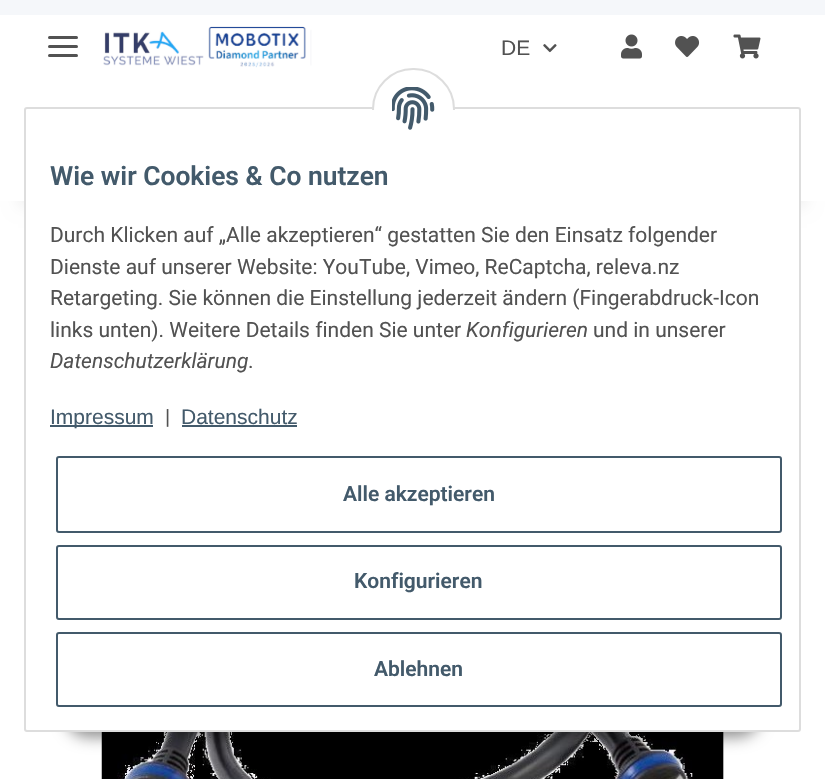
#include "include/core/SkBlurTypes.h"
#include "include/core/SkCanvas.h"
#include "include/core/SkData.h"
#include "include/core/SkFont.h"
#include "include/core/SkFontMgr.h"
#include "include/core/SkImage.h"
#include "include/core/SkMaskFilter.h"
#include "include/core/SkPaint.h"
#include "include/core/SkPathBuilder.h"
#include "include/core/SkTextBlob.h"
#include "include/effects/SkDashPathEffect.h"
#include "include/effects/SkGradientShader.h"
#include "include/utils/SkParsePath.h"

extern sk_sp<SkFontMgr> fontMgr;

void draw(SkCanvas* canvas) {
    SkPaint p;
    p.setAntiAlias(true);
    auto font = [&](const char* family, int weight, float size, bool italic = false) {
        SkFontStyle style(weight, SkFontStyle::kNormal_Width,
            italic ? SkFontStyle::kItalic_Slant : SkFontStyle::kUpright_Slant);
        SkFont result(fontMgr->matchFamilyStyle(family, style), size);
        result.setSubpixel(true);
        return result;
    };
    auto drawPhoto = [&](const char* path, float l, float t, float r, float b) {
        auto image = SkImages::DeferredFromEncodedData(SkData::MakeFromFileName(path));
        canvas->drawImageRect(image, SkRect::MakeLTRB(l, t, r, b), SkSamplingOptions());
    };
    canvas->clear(0xFFF5F7FA);
    p.setColor(0xFFFFFFFF);
    canvas->drawRect(SkRect::MakeLTRB(0, 201, 825, 779), p);
    p.setColor(0x0F000000);
    p.setMaskFilter(SkMaskFilter::MakeBlur(kNormal_SkBlurStyle, 7));
    canvas->drawRect(SkRect::MakeLTRB(18, 57, 807, 207), p);
    p.setMaskFilter(nullptr);
    p.setColor(0xFFFFFFFF);
    canvas->drawRect(SkRect::MakeLTRB(0, 15, 825, 201), p);
    p.setColor(0xFF525252);
    canvas->drawRoundRect(SkRect::MakeLTRB(48, 45, 78, 48), 1.5f, 1.5f, p);
    canvas->drawRoundRect(SkRect::MakeLTRB(48, 36, 78, 39), 1.5f, 1.5f, p);
    canvas->drawRoundRect(SkRect::MakeLTRB(48, 54, 78, 57), 1.5f, 1.5f, p);
    drawPhoto("media/1.png", 103, 26, 312, 68);
    auto font1 = font("Liberation Sans", 400, 21);
    canvas->drawString("DE", 501, 55, font1, p);
    drawPhoto("media/2.png", 543, 44, 557, 53);
    drawPhoto("media/3.png", 621, 34, 642, 59);
    drawPhoto("media/4.png", 675, 36, 700, 57);
    drawPhoto("media/5.png", 733, 34, 761, 59);
    drawPhoto("media/7.png", 101, 732, 724, 779);
    p.setColor(0x73000000);
    p.setMaskFilter(SkMaskFilter::MakeBlur(kNormal_SkBlurStyle, 7.5f));
    canvas->drawRoundRect(SkRect::MakeLTRB(65, 689, 761, 737), 24, 24, p);
    p.setMaskFilter(nullptr);
    p.setColor(0xFFFFFFFF);
    canvas->drawRoundRect(SkRect::MakeLTRB(25, 108, 800, 731), 2, 2, p);
    p.setStyle(SkPaint::kStroke_Style);
    p.setStrokeWidth(2);
    p.setColor(0xFFDDDDDD);
    canvas->drawRoundRect(SkRect::MakeLTRB(25, 108, 800, 731), 2, 2, p);
    p.setStyle(SkPaint::kFill_Style);
    p.setColor(0xFFFFFFFF);
    canvas->drawRoundRect(SkRect::MakeLTRB(373, 69, 454, 149), 40, 40, p);
    p.setStyle(SkPaint::kStroke_Style);
    p.setColor(0xFFDDDDDD);
    canvas->drawRoundRect(SkRect::MakeLTRB(373, 69, 454, 149), 40, 40, p);
    p.setStyle(SkPaint::kFill_Style);
    p.setColor(0xFFFFFFFF);
    canvas->drawRect(SkRect::MakeLTRB(372, 110, 455, 150), p);
    drawPhoto("media/6.png", 392, 87, 435, 130);
    auto font2 = font("Roboto", 600, 26.4f);
    p.setColor(0xFF435A6B);
    canvas->drawString("Wie wir Cookies & Co nutzen", 50, 185, font2, p);
    auto font3 = font("Roboto", 400, 21);
    p.setColor(0xFF525252);
    {
        const struct { const char* s; float x, y; } items[] = {
            {"Durch Klicken auf „Alle akzeptieren“ gestatten Sie den Einsatz folgender", 50, 242},
            {"Dienste auf unserer Website: YouTube, Vimeo, ReCaptcha, releva.nz", 50, 274},
            {"Retargeting. Sie können die Einstellung jederzeit ändern (Fingerabdruck-Icon", 50, 305},
            {"links unten). Weitere Details finden Sie unter", 50, 337},
        };
        for (auto [s, x, y] : items) {
            canvas->drawString(s, x, y, font3, p);
        }
    }
    auto font4 = font("Roboto", 400, 21, true);
    canvas->drawString("Konfigurieren", 466, 337, font4, p);
    canvas->drawString("und in unserer", 593, 337, font3, p);
    canvas->drawString("Datenschutzerklärung", 50, 368, font4, p);
    canvas->drawString(".", 248, 368, font3, p);
    p.setColor(0xFF435A6B);
    canvas->drawRect(SkRect::MakeLTRB(50, 425, 153, 427), p);
    canvas->drawString("Impressum", 50, 424, font1, p);
    p.setColor(0xFF525252);
    canvas->drawString("|", 165, 424, font3, p);
    p.setColor(0xFF435A6B);
    canvas->drawString("Datenschutz", 181, 424, font1, p);
    canvas->drawRect(SkRect::MakeLTRB(182, 425, 297, 427), p);
    p.setStyle(SkPaint::kStroke_Style);
    canvas->drawRoundRect(SkRect::MakeLTRB(57, 457, 781, 532), 2, 2, p);
    auto font5 = font("Roboto", 600, 21);
    p.setStyle(SkPaint::kFill_Style);
    canvas->drawString("Alle akzeptieren", 343, 501, font5, p);
    p.setStyle(SkPaint::kStroke_Style);
    canvas->drawRoundRect(SkRect::MakeLTRB(57, 546, 781, 619), 2, 2, p);
    p.setStyle(SkPaint::kFill_Style);
    canvas->drawString("Konfigurieren", 354, 588, font5, p);
    p.setStyle(SkPaint::kStroke_Style);
    canvas->drawRoundRect(SkRect::MakeLTRB(57, 633, 781, 706), 2, 2, p);
    p.setStyle(SkPaint::kFill_Style);
    canvas->drawString("Ablehnen", 374, 676, font5, p);
}
